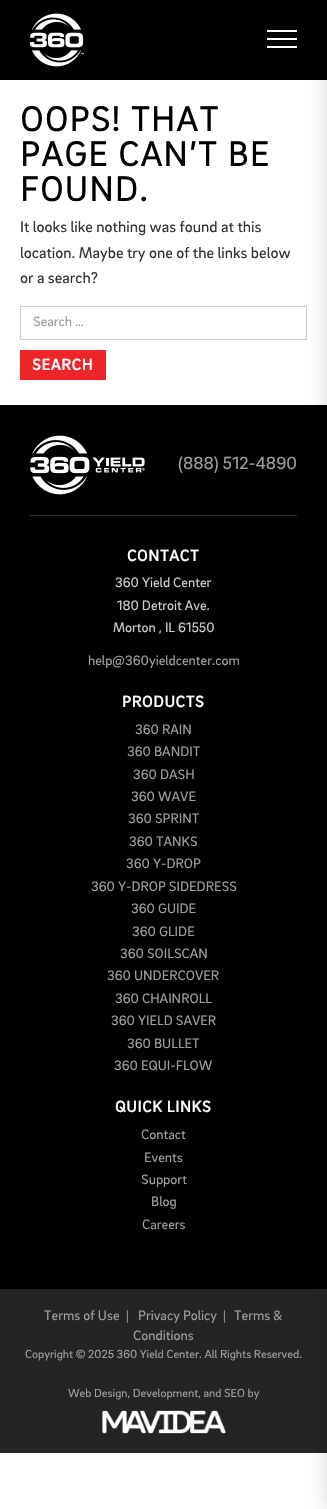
#include "include/core/SkBlurTypes.h"
#include "include/core/SkCanvas.h"
#include "include/core/SkData.h"
#include "include/core/SkFont.h"
#include "include/core/SkFontMgr.h"
#include "include/core/SkImage.h"
#include "include/core/SkMaskFilter.h"
#include "include/core/SkPaint.h"
#include "include/core/SkPathBuilder.h"
#include "include/core/SkTextBlob.h"
#include "include/effects/SkDashPathEffect.h"
#include "include/effects/SkGradientShader.h"
#include "include/utils/SkParsePath.h"

extern sk_sp<SkFontMgr> fontMgr;

void draw(SkCanvas* canvas) {
    SkPaint p;
    p.setAntiAlias(true);
    auto font = [&](const char* family, int weight, float size, bool italic = false) {
        SkFontStyle style(weight, SkFontStyle::kNormal_Width,
            italic ? SkFontStyle::kItalic_Slant : SkFontStyle::kUpright_Slant);
        SkFont result(fontMgr->matchFamilyStyle(family, style), size);
        result.setSubpixel(true);
        return result;
    };
    auto drawTracked = [&](const char* s, float x, float y, const SkFont& font, const SkPaint& ink, float letter, float word) {
        std::vector<SkGlyphID> glyphs(font.countText(s, strlen(s), SkTextEncoding::kUTF8));
        std::vector<float> xs(glyphs.size());
        font.textToGlyphs(s, strlen(s), SkTextEncoding::kUTF8, glyphs);
        font.getXPos(glyphs, xs, x);
        float extra = 0;
        for (size_t i = 0; i < glyphs.size(); i++) {
            xs[i] += extra;
            extra += letter + word * (glyphs[i] == font.unicharToGlyph(' '));
        }
        canvas->drawTextBlob(SkTextBlob::MakeFromPosHGlyphs(glyphs, xs, y, font), 0, 0, ink);
    };
    auto drawPhoto = [&](const char* path, float l, float t, float r, float b) {
        auto image = SkImages::DeferredFromEncodedData(SkData::MakeFromFileName(path));
        canvas->drawImageRect(image, SkRect::MakeLTRB(l, t, r, b), SkSamplingOptions());
    };
    canvas->clear(0xFFFFFFFF);
    p.setColor(0xFF000000);
    canvas->drawRect(SkRect::MakeLTRB(0, 0, 327, 80), p);
    drawPhoto("media/1.png", 30, 13, 84, 67);
    {
        const struct { float l, t, r, b; SkColor color; } items[] = {
            {267, 38, 297, 40, 0xFFFFFFFF},
            {267, 30, 297, 32, 0xFFFFFFFF},
            {267, 46, 297, 48, 0xFFFFFFFF},
        };
        for (auto [l, t, r, b, color] : items) {
            p.setColor(color);
            canvas->drawRect(SkRect::MakeLTRB(l, t, r, b), p);
        }
    }
    p.setStyle(SkPaint::kStroke_Style);
    p.setStrokeWidth(1);
    p.setColor(0xFFCCCCCC);
    canvas->drawRect(SkRect::MakeLTRB(20.5f, 306.5f, 306.5f, 339.5f), p);
    p.setStyle(SkPaint::kFill_Style);
    p.setColor(0xFF000000);
    canvas->drawRect(SkRect::MakeLTRB(0, 405, 327, 1289), p);
    p.setColor(0xFF242424);
    canvas->drawRect(SkRect::MakeLTRB(0, 1289, 327, 1453), p);
    p.setColor(0x26000000);
    p.setMaskFilter(SkMaskFilter::MakeBlur(kNormal_SkBlurStyle, 9.5f));
    canvas->drawRect(SkRect::MakeLTRB(327, 0, 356, 1509), p);
    p.setMaskFilter(nullptr);
    auto font1 = font("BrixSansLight", 700, 35);
    p.setColor(0xFF000000);
    {
        const struct { const char* s; float x, y; } items[] = {
            {"OOPS! THAT", 20, 131},
            {"PAGE CAN’T BE", 20, 166},
            {"FOUND.", 20, 201},
        };
        for (auto [s, x, y] : items) {
            drawTracked(s, x, y, font1, p, 1.75f, 0);
        }
    }
    auto font2 = font("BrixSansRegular", 400, 16);
    p.setColor(0xFF303030);
    {
        const struct { const char* s; float x, y; } items[] = {
            {"It looks like nothing was found at this", 20, 232},
            {"location. Maybe try one of the links below", 20, 258},
            {"or a search?", 20, 283},
        };
        for (auto [s, x, y] : items) {
            canvas->drawString(s, x, y, font2, p);
        }
    }
    auto font3 = font("BrixSansRegular", 400, 14);
    p.setColor(0xFF999999);
    canvas->drawString("Search …", 33, 326, font3, p);
    p.setColor(0xFFEE2529);
    canvas->drawRect(SkRect::MakeLTRB(20, 350, 106, 380), p);
    auto font4 = font("BrixSansRegular", 700, 16);
    p.setColor(0xFFFFFFFF);
    drawTracked("SEARCH", 32, 370, font4, p, 0.75f, 0);
    p.setColor(0xFF303030);
    canvas->drawRect(SkRect::MakeLTRB(30, 515, 297, 516), p);
    drawPhoto("media/2.png", 30, 435, 145, 495);
    auto font5 = font("BrixSansRegular", 400, 18);
    p.setColor(0xFFA0A0A0);
    canvas->drawString("(888) 512-4890", 178, 469, font5, p);
    p.setColor(0xFFFFFFFF);
    drawTracked("CONTACT", 127, 561, font4, p, 0.75f, 0);
    p.setColor(0xFFD0D0D0);
    {
        const struct { const char* s; float x, y; } items[] = {
            {"360 Yield Center", 115, 587},
            {"180 Detroit Ave.", 117, 610},
            {"Morton , IL 61550", 113, 632},
        };
        for (auto [s, x, y] : items) {
            canvas->drawString(s, x, y, font3, p);
        }
    }
    p.setColor(0xFFA0A0A0);
    canvas->drawString("help@360yieldcenter.com", 88, 665, font3, p);
    p.setColor(0xFFFFFFFF);
    drawTracked("PRODUCTS", 122, 707, font4, p, 0.75f, 0);
    p.setColor(0xFFA0A0A0);
    {
        const struct { const char* s; float x, y; } items[] = {
            {"360 RAIN", 135, 734},
            {"360 BANDIT", 127, 756},
            {"360 DASH", 133, 779},
            {"360 WAVE", 131, 801},
            {"360 SPRINT", 128, 823},
            {"360 TANKS", 129, 846},
            {"360 Y-DROP", 126, 868},
            {"360 Y-DROP SIDEDRESS", 91, 891},
            {"360 GUIDE", 131, 913},
            {"360 GLIDE", 132, 936},
            {"360 SOILSCAN", 120, 958},
            {"360 UNDERCOVER", 107, 980},
            {"360 CHAINROLL", 115, 1003},
            {"360 YIELD SAVER", 111, 1025},
            {"360 BULLET", 127, 1048},
            {"360 EQUI-FLOW", 114, 1070},
        };
        for (auto [s, x, y] : items) {
            canvas->drawString(s, x, y, font3, p);
        }
    }
    p.setColor(0xFFFFFFFF);
    drawTracked("QUICK LINKS", 115, 1112, font4, p, 0.75f, 0);
    p.setColor(0xFFA0A0A0);
    {
        const struct { const char* s; float x, y; } items[] = {
            {"Contact", 141, 1139},
            {"Events", 144, 1162},
            {"Support", 141, 1184},
            {"Blog", 151, 1206},
            {"Careers", 142, 1229},
        };
        for (auto [s, x, y] : items) {
            canvas->drawString(s, x, y, font3, p);
        }
    }
    p.setColor(0xFF1F213B);
    canvas->drawRect(SkRect::MakeLTRB(161, 1248, 162, 1249), p);
    p.setColor(0xFFA0A0A0);
    {
        const struct { const char* s; float x, y; } items[] = {
            {"Terms of Use", 44, 1320},
            {"|", 126, 1320},
            {"Privacy Policy", 138, 1320},
            {"|", 223, 1320},
            {"Terms &", 234, 1320},
            {"Conditions", 133, 1340},
        };
        for (auto [s, x, y] : items) {
            canvas->drawString(s, x, y, font3, p);
        }
    }
    auto font6 = font("BrixSansRegular", 400, 12);
    canvas->drawString("Copyright © 2025 360 Yield Center. All Rights Reserved.", 25, 1358, font6, p);
    canvas->drawString("Web Design, Development, and SEO by", 68, 1397, font6, p);
    drawPhoto("media/3.png", 102, 1410, 226, 1434);
}
